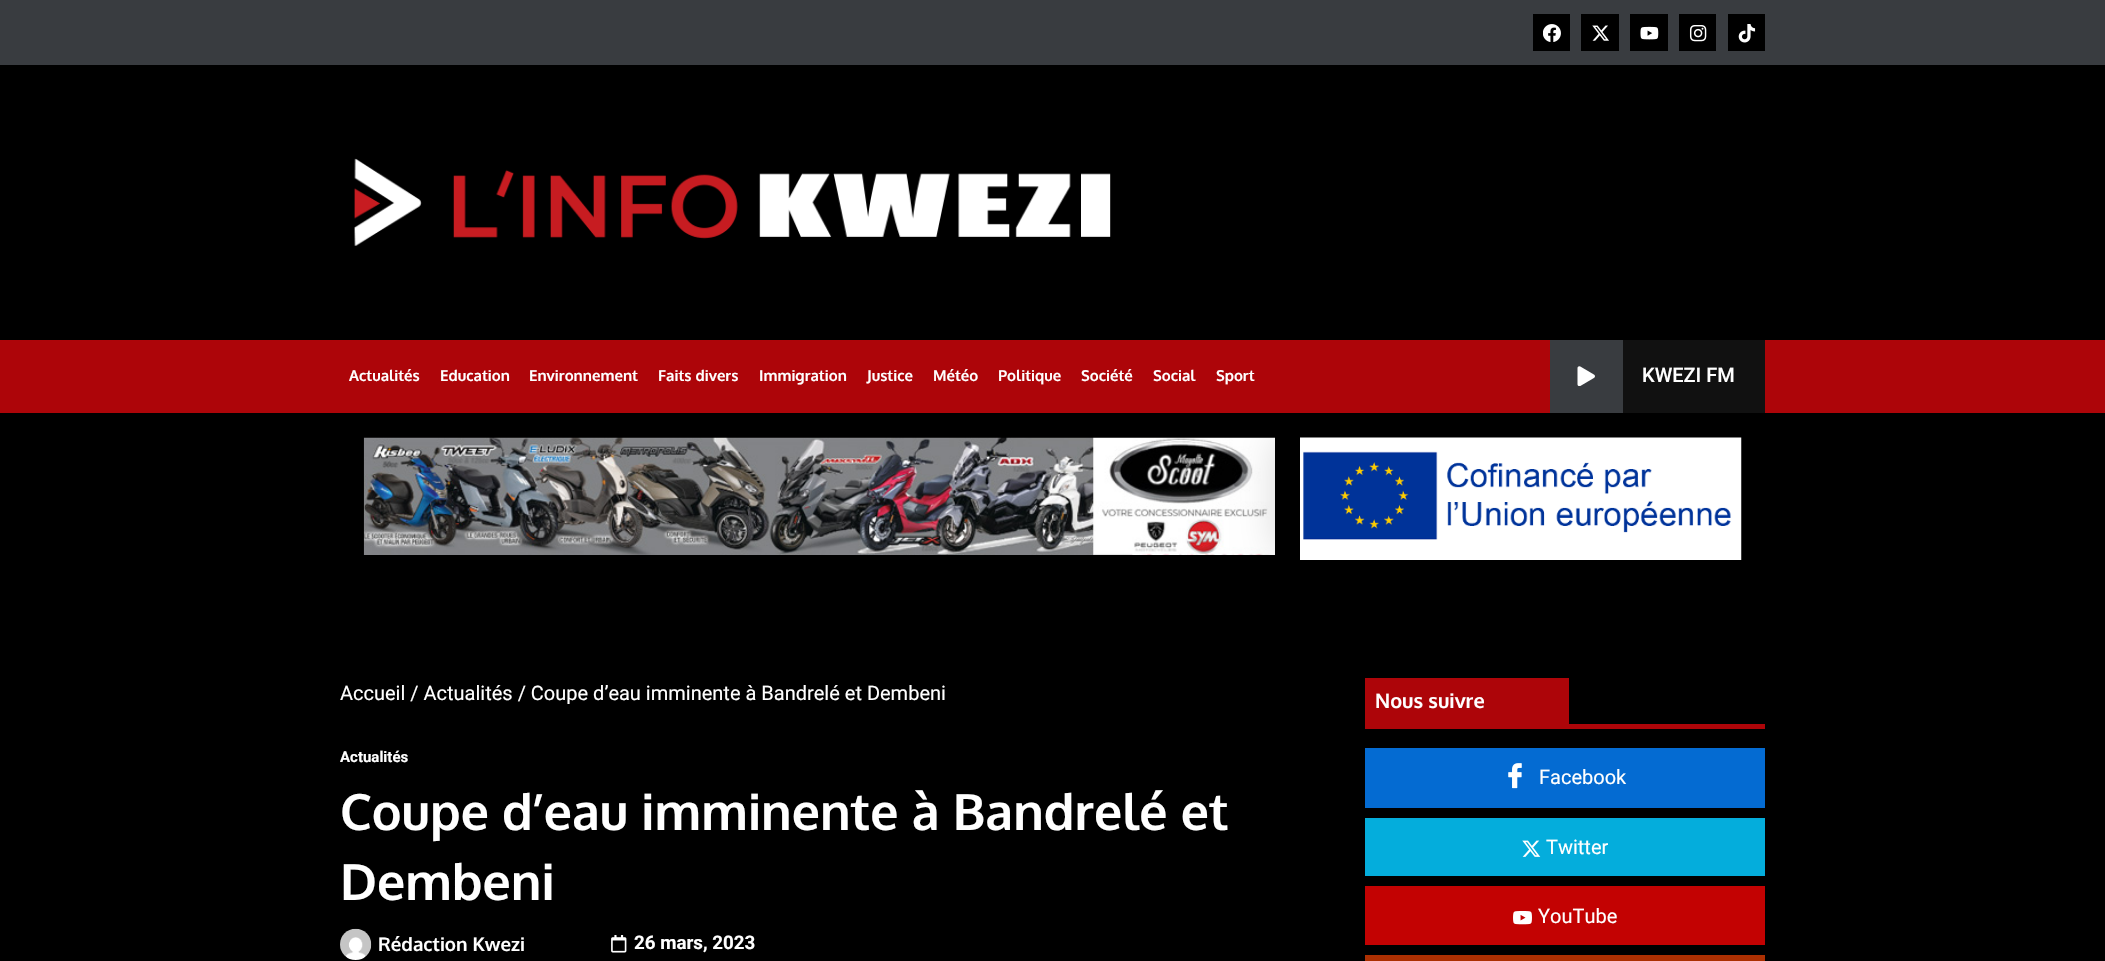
#include "include/core/SkBlurTypes.h"
#include "include/core/SkCanvas.h"
#include "include/core/SkData.h"
#include "include/core/SkFont.h"
#include "include/core/SkFontMgr.h"
#include "include/core/SkImage.h"
#include "include/core/SkMaskFilter.h"
#include "include/core/SkPaint.h"
#include "include/core/SkPathBuilder.h"
#include "include/core/SkTextBlob.h"
#include "include/effects/SkDashPathEffect.h"
#include "include/effects/SkGradientShader.h"
#include "include/utils/SkParsePath.h"

extern sk_sp<SkFontMgr> fontMgr;

void draw(SkCanvas* canvas) {
    SkPaint p;
    p.setAntiAlias(true);
    auto font = [&](const char* family, int weight, float size, bool italic = false) {
        SkFontStyle style(weight, SkFontStyle::kNormal_Width,
            italic ? SkFontStyle::kItalic_Slant : SkFontStyle::kUpright_Slant);
        SkFont result(fontMgr->matchFamilyStyle(family, style), size);
        result.setSubpixel(true);
        return result;
    };
    auto drawPhoto = [&](const char* path, float l, float t, float r, float b) {
        auto image = SkImages::DeferredFromEncodedData(SkData::MakeFromFileName(path));
        canvas->drawImageRect(image, SkRect::MakeLTRB(l, t, r, b), SkSamplingOptions());
    };
    canvas->clear(0xFF000000);
    p.setColor(0xFF393C40);
    canvas->drawRect(SkRect::MakeLTRB(0, 0, 2105, 65), p);
    p.setColor(0xFF000000);
    canvas->drawRect(SkRect::MakeLTRB(1533, 14, 1570, 51), p);
    drawPhoto("media/1.png", 1543, 24, 1561, 42);
    canvas->drawRect(SkRect::MakeLTRB(1581, 14, 1619, 51), p);
    drawPhoto("media/2.png", 1592, 25, 1609, 41);
    canvas->drawRect(SkRect::MakeLTRB(1630, 14, 1668, 51), p);
    drawPhoto("media/3.png", 1640, 26, 1659, 40);
    canvas->drawRect(SkRect::MakeLTRB(1679, 14, 1716, 51), p);
    drawPhoto("media/4.png", 1689, 25, 1707, 42);
    canvas->drawRect(SkRect::MakeLTRB(1728, 14, 1765, 51), p);
    drawPhoto("media/5.png", 1738, 24, 1756, 43);
    drawPhoto("media/6.png", 354, 158, 1111, 246);
    p.setColor(0xFFAD0509);
    canvas->drawRect(SkRect::MakeLTRB(0, 340, 2105, 413), p);
    auto font1 = font("Oxygen", 700, 15);
    p.setColor(0xFFFFFFFF);
    {
        const struct { const char* s; float x, y; } items[] = {
            {"Actualités", 349, 381},
            {"Education", 440, 381},
            {"Environnement", 529, 381},
            {"Faits divers", 658, 381},
            {"Immigration", 759, 381},
            {"Justice", 867, 381},
            {"Météo", 933, 381},
            {"Politique", 998, 381},
            {"Société", 1081, 381},
            {"Social", 1153, 381},
        };
        for (auto [s, x, y] : items) {
            canvas->drawString(s, x, y, font1, p);
        }
    }
    drawPhoto("media/8.png", 363, 437, 1275, 555);
    canvas->save();
    canvas->clipRect(SkRect::MakeLTRB(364, 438, 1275, 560));
    p.setColor(0x26000000);
    p.setMaskFilter(SkMaskFilter::MakeBlur(kNormal_SkBlurStyle, 19));
    canvas->drawRect(SkRect::MakeLTRB(1275, 438, 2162, 551), p);
    p.setMaskFilter(nullptr);
    canvas->restore();
    p.setColor(0xFFFFFFFF);
    canvas->drawString("Sport", 1216, 381, font1, p);
    p.setColor(0xFF111111);
    canvas->drawRect(SkRect::MakeLTRB(1623, 340, 1765, 413), p);
    p.setColor(0xFF393C40);
    canvas->drawRect(SkRect::MakeLTRB(1550, 340, 1623, 413), p);
    drawPhoto("media/7.png", 1577, 366, 1595, 386);
    auto font2 = font("Roboto", 500, 20);
    p.setColor(0xFFFFFFFF);
    canvas->drawString("KWEZI FM", 1642, 382, font2, p);
    drawPhoto("media/9.png", 1300, 437, 1742, 560);
    auto font3 = font("Roboto", 400, 20);
    canvas->drawString("Accueil / Actualités / Coupe d’eau imminente à Bandrelé et Dembeni", 340, 700, font3, p);
    auto font4 = font("Roboto", 700, 15);
    canvas->drawString("Actualités", 340, 762, font4, p);
    auto font5 = font("Oxygen", 700, 50);
    canvas->drawString("Coupe d’eau imminente à Bandrelé et", 340, 830, font5, p);
    canvas->drawString("Dembeni", 340, 900, font5, p);
    drawPhoto("media/10.png", 340, 928, 372, 960);
    auto font6 = font("Oxygen", 700, 18.75f);
    canvas->drawString("Rédaction Kwezi", 378, 951, font6, p);
    drawPhoto("media/11.png", 611, 935, 627, 953);
    auto font7 = font("Roboto", 700, 18.75f);
    canvas->drawString("26 mars, 2023", 634, 949, font7, p);
    p.setColor(0xFFAD0509);
    canvas->drawRect(SkRect::MakeLTRB(1365, 724, 1765, 729), p);
    canvas->drawRect(SkRect::MakeLTRB(1365, 678, 1569, 724), p);
    auto font8 = font("Oxygen", 700, 20);
    p.setColor(0xFFFFFFFF);
    canvas->drawString("Nous suivre", 1375, 708, font8, p);
    p.setColor(0xFF046BD2);
    canvas->drawRect(SkRect::MakeLTRB(1365, 748, 1765, 808), p);
    drawPhoto("media/12.png", 1508, 763, 1522, 789);
    p.setColor(0xFFFFFFFF);
    canvas->drawString("Facebook", 1539, 784, font3, p);
    p.setColor(0xFF04ADDC);
    canvas->drawRect(SkRect::MakeLTRB(1365, 818, 1765, 876), p);
    drawPhoto("media/13.png", 1522, 840, 1541, 857);
    p.setColor(0xFFFFFFFF);
    canvas->drawString("Twitter", 1546, 854, font3, p);
    p.setColor(0xFFC30202);
    canvas->drawRect(SkRect::MakeLTRB(1365, 886, 1765, 945), p);
    drawPhoto("media/14.png", 1513, 911, 1532, 925);
    p.setColor(0xFFFFFFFF);
    canvas->drawString("YouTube", 1538, 923, font3, p);
    p.setColor(0xFFAC3002);
    canvas->drawRect(SkRect::MakeLTRB(1365, 955, 1765, 961), p);
}
